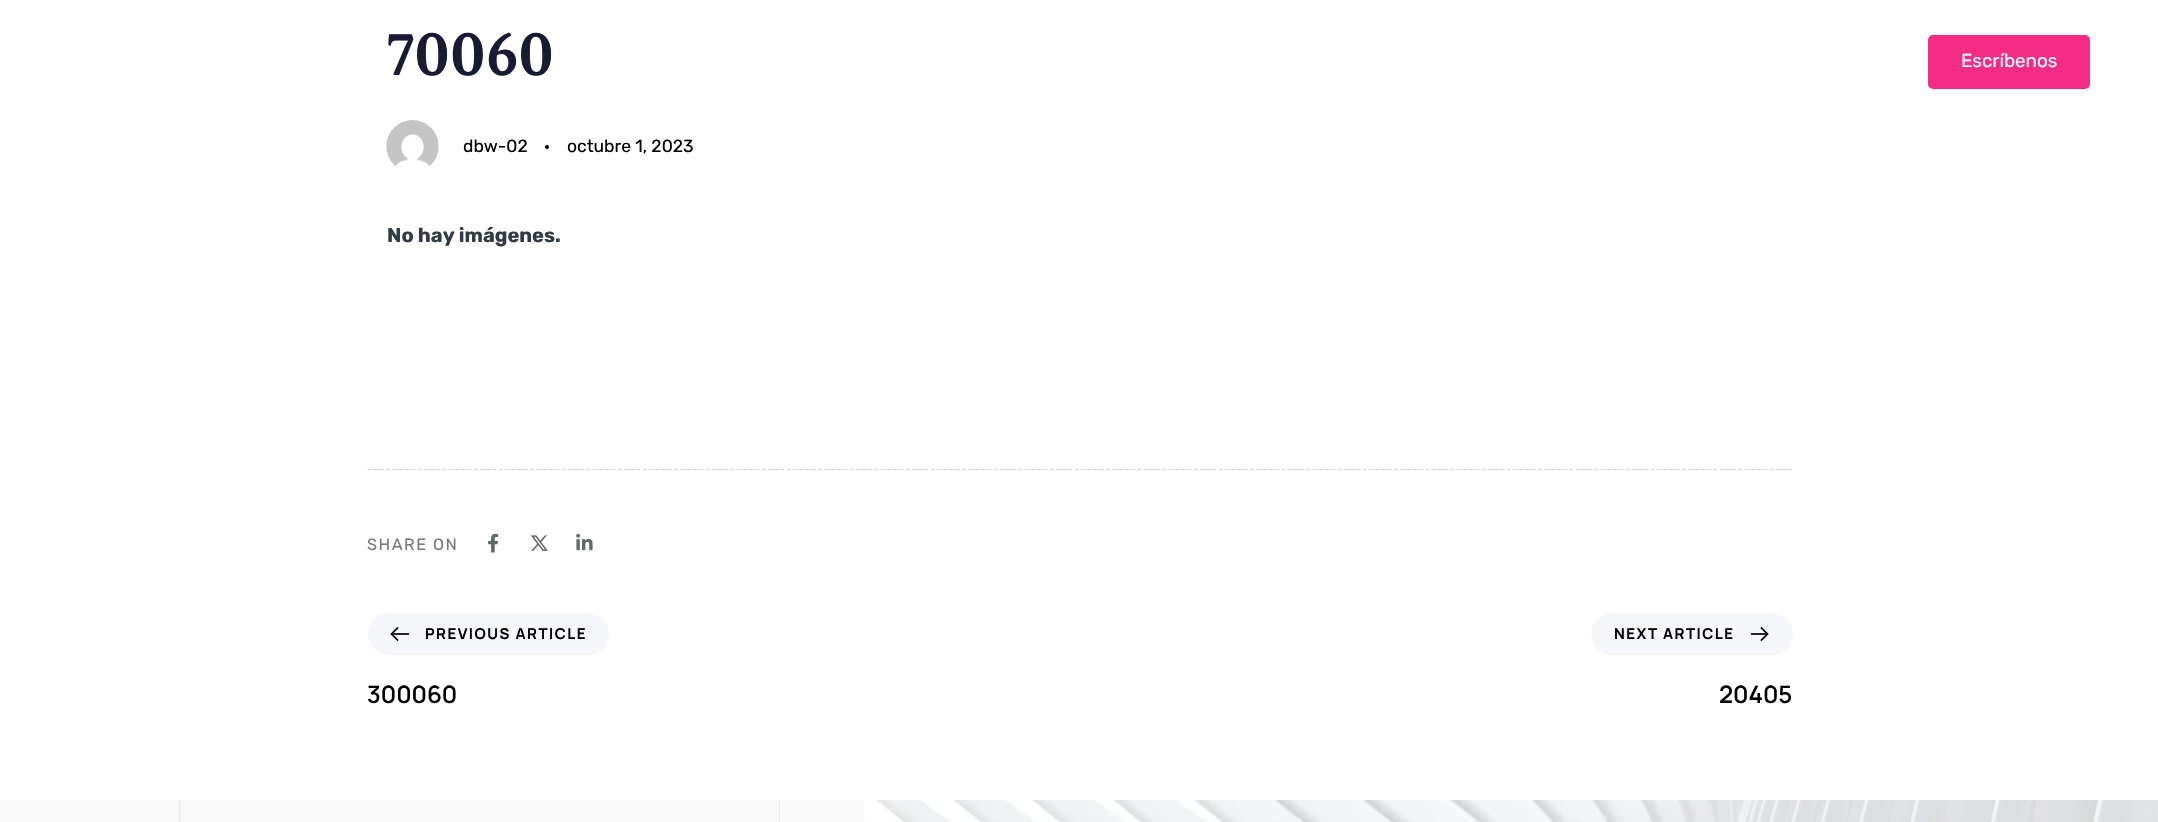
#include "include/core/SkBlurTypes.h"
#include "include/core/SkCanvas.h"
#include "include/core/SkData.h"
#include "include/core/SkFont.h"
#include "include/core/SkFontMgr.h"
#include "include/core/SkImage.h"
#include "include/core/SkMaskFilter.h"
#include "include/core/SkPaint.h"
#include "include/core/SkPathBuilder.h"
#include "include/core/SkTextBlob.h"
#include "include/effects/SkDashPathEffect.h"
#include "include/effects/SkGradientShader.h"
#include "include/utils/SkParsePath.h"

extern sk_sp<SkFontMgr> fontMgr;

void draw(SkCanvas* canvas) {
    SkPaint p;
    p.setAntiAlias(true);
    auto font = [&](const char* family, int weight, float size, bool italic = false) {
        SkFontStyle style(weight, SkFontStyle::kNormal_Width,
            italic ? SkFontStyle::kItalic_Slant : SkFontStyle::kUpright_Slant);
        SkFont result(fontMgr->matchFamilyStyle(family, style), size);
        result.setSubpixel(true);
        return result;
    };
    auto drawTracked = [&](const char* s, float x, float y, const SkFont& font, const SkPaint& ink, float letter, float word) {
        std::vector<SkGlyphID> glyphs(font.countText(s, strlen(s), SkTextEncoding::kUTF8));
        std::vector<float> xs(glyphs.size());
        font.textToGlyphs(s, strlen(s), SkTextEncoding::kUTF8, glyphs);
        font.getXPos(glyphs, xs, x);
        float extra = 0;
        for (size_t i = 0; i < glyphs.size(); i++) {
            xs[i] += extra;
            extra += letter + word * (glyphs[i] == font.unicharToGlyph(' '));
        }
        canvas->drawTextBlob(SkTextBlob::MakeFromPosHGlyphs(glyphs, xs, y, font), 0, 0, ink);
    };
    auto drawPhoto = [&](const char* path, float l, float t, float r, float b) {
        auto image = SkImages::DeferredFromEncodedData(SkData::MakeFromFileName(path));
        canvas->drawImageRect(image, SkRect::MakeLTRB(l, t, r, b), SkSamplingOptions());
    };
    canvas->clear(0xFFFFFFFF);
    auto font1 = font("Halant", 600, 65);
    p.setColor(0xFF181B31);
    canvas->drawString("70060", 386, 78, font1, p);
    drawPhoto("media/1.png", 386, 120, 439, 168);
    auto font2 = font("Rubik", 400, 17.5f);
    p.setColor(0xFF000000);
    canvas->drawString("dbw-02", 463, 152, font2, p);
    canvas->drawCircle(547, 147, 2, p);
    canvas->drawString("octubre 1, 2023", 567, 152, font2, p);
    auto font3 = font("Rubik", 700, 20);
    p.setColor(0xFF323A45);
    canvas->drawString("No hay imágenes.", 387, 242, font3, p);
    p.setStyle(SkPaint::kStroke_Style);
    p.setStrokeWidth(1.2f);
    p.setColor(0xFFCECECE);
    p.setPathEffect(SkDashPathEffect::Make({{3.75f, 2.51f}}, 0));
    canvas->drawPath(SkPathBuilder().moveTo(367.5f, 469.5f).lineTo(1792.5f, 469.5f).detach(), p);
    p.setPathEffect(nullptr);
    auto font4 = font("Rubik", 400, 16.25f);
    p.setStyle(SkPaint::kFill_Style);
    p.setColor(0xFF7A7A7A);
    drawTracked("SHARE ON", 367, 550, font4, p, 1.5f, 0);
    drawPhoto("media/2.png", 488, 534, 499, 553);
    drawPhoto("media/3.png", 530, 535, 548, 551);
    drawPhoto("media/4.png", 576, 534, 593, 551);
    p.setColor(0xFFF5F7FA);
    canvas->drawRoundRect(SkRect::MakeLTRB(368, 613, 609, 655), 21, 21, p);
    p.setColor(0xFF252526);
    canvas->drawRect(SkRect::MakeLTRB(392, 633, 409, 635), p);
    p.setStyle(SkPaint::kStroke_Style);
    p.setStrokeWidth(1.7f);
    p.setStrokeCap(SkPaint::kSquare_Cap);
    p.setColor(0xFF000000);
    canvas->drawPath(SkPathBuilder().moveTo(397.5f, 640).lineTo(391.5f, 634).lineTo(397.5f, 628).detach(), p);
    auto font5 = font("Manrope", 700, 15);
    p.setStyle(SkPaint::kFill_Style);
    drawTracked("PREVIOUS ARTICLE", 425, 639, font5, p, 1.5f, 0);
    auto font6 = font("Manrope", 600, 24);
    canvas->drawString("300060", 367, 703, font6, p);
    p.setColor(0xFFF5F7FA);
    canvas->drawRoundRect(SkRect::MakeLTRB(1591, 613, 1793, 655), 21, 21, p);
    p.setColor(0xFF000000);
    drawTracked("NEXT ARTICLE", 1614, 639, font5, p, 1.5f, 0);
    p.setColor(0xFF252526);
    canvas->drawRect(SkRect::MakeLTRB(1751, 633, 1768, 635), p);
    p.setStyle(SkPaint::kStroke_Style);
    p.setColor(0xFF000000);
    canvas->drawPath(SkPathBuilder().moveTo(1761.5f, 628).lineTo(1767.5f, 634).lineTo(1761.5f, 640).detach(), p);
    p.setStyle(SkPaint::kFill_Style);
    canvas->drawString("20405", 1719, 703, font6, p);
    p.setColor(0xFFF42C85);
    canvas->drawRoundRect(SkRect::MakeLTRB(1928, 35, 2090, 89), 5, 5, p);
    auto font7 = font("Rubik", 400, 18.75f);
    p.setColor(0xFFFFFFFF);
    canvas->drawString("Escríbenos", 1961, 67, font7, p);
    p.setColor(0xFFF8F8F8);
    canvas->drawRect(SkRect::MakeLTRB(0, 800, 864, 822), p);
    drawPhoto("media/5.png", 179, 800, 780, 822);
    drawPhoto("media/6.png", 864, 800, 2158, 822);
}
